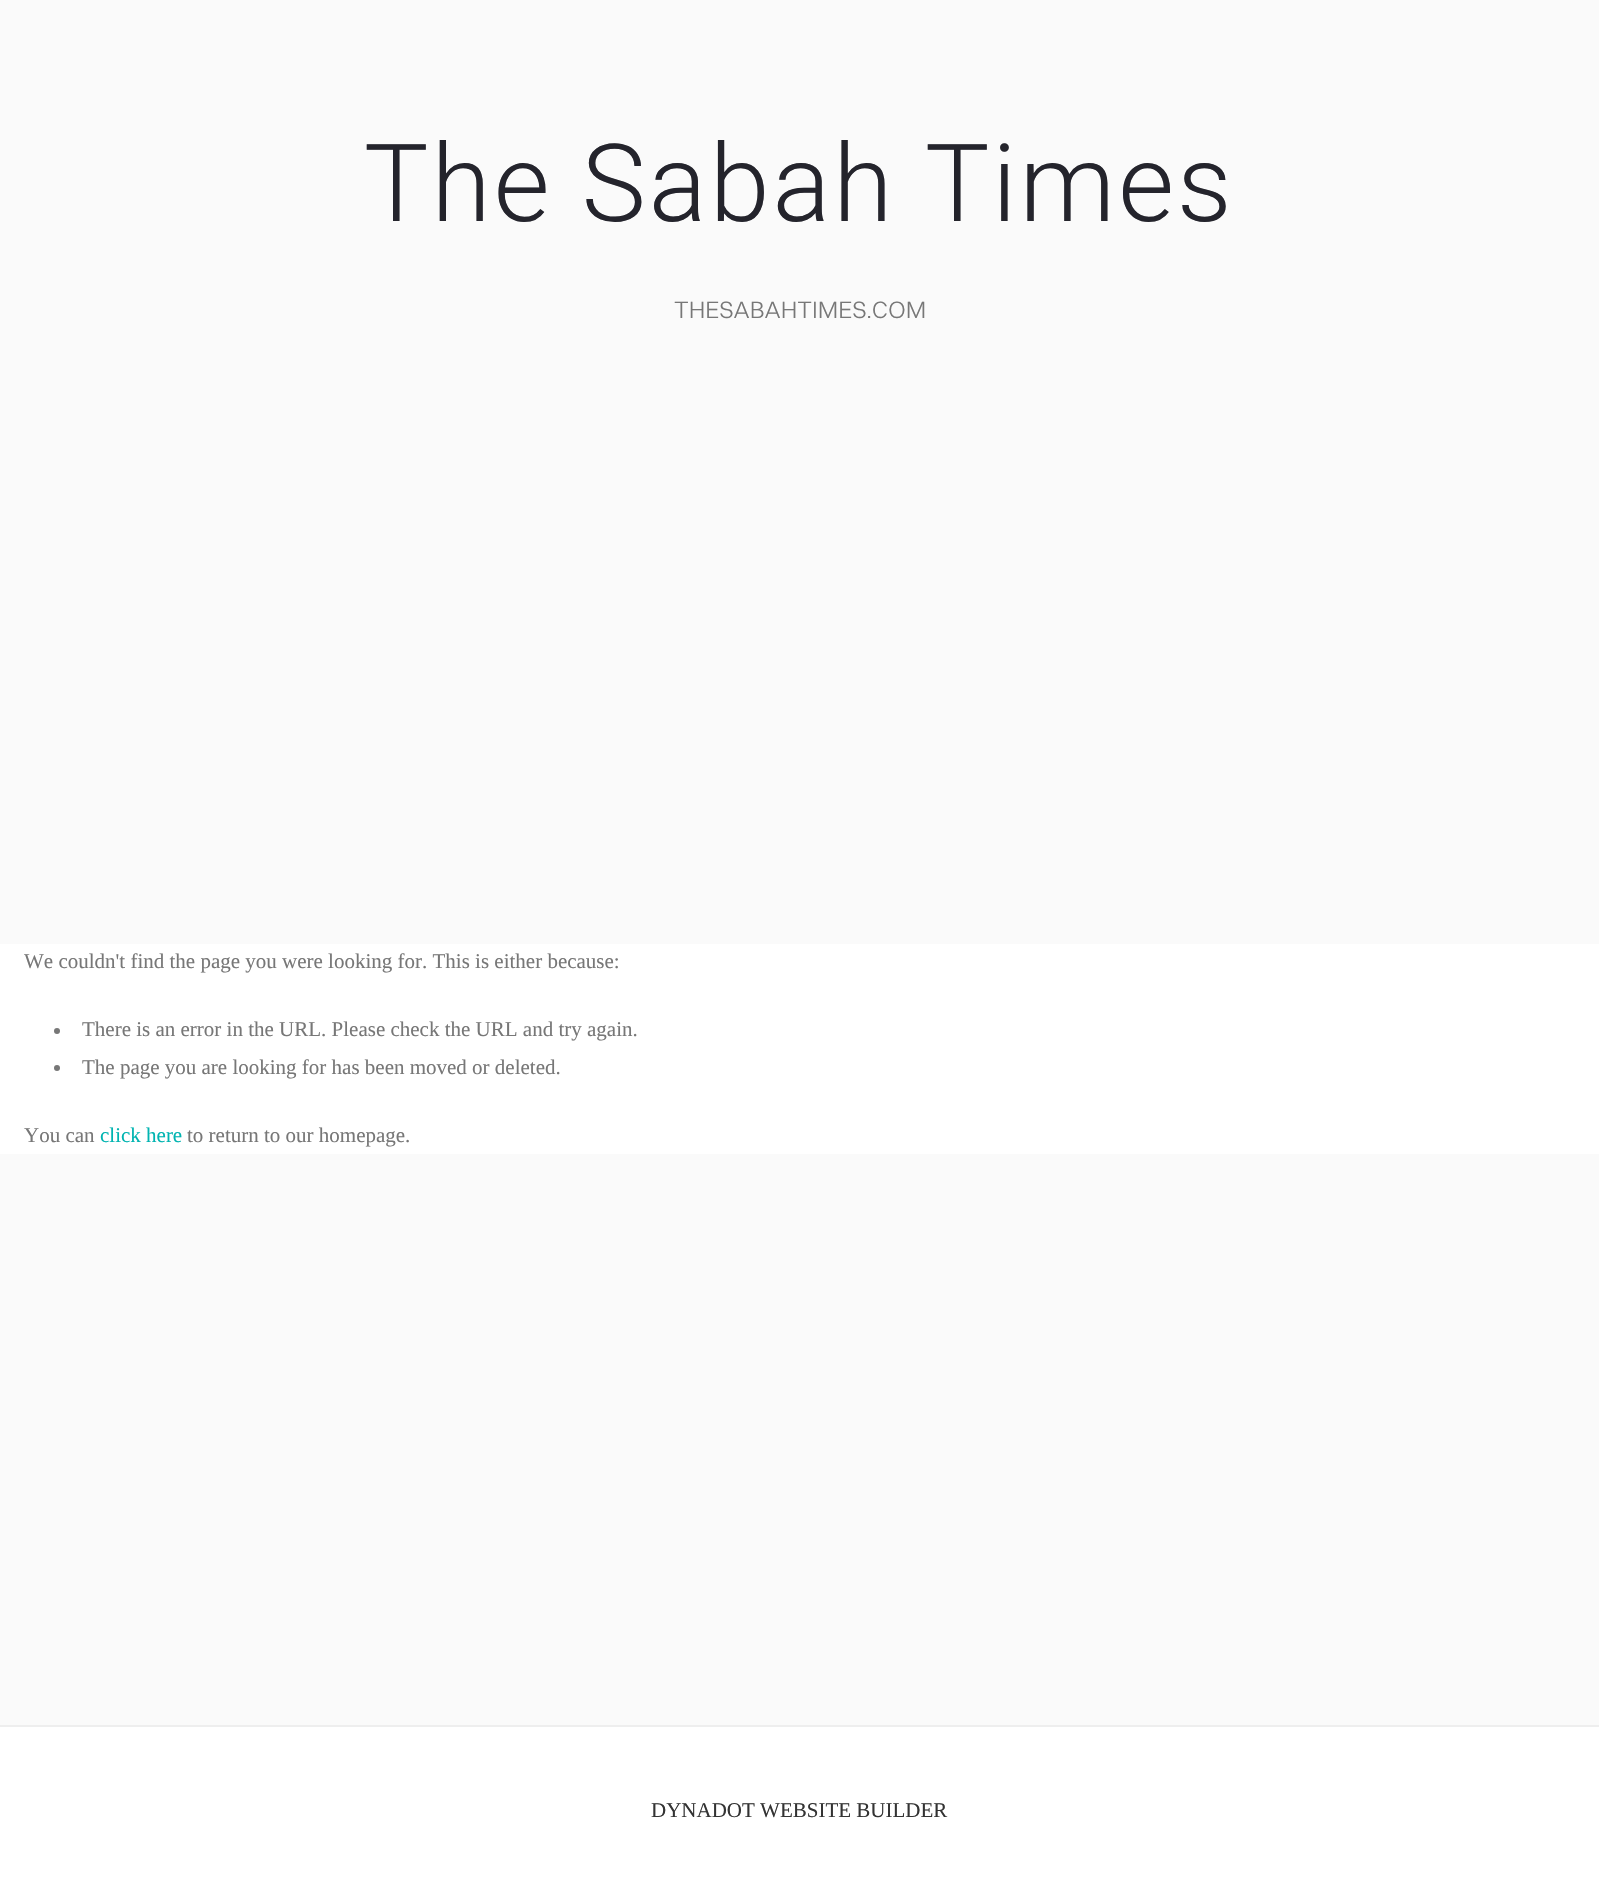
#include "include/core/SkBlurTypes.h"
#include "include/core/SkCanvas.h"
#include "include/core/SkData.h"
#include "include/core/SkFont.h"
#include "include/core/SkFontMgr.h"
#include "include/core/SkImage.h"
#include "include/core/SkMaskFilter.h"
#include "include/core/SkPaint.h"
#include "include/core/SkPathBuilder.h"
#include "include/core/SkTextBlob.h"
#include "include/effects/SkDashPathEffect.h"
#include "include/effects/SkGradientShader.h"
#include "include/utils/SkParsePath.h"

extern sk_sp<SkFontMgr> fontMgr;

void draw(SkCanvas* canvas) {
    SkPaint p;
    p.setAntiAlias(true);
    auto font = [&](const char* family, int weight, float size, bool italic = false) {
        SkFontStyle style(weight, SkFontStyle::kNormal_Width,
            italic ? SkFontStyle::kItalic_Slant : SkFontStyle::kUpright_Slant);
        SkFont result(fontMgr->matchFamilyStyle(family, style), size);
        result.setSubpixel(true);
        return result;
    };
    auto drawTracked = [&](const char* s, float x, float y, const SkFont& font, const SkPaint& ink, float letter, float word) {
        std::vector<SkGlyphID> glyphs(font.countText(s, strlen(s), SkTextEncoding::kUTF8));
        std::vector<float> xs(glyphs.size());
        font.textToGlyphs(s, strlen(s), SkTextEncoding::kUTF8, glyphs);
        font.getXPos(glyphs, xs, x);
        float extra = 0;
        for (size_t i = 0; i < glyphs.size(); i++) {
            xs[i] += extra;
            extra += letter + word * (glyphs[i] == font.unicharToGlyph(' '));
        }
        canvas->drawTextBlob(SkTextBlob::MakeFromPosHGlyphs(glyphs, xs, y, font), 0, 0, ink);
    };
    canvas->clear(0xFFFAFAFA);
    auto font1 = font("Roboto", 300, 108);
    p.setColor(0xFF24242C);
    drawTracked("The Sabah Times", 364, 221, font1, p, 3, 0);
    auto font2 = font("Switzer", 300, 24);
    p.setColor(0xFF777777);
    canvas->drawString("THESABAHTIMES.COM", 674, 318, font2, p);
    p.setColor(0xFFFFFFFF);
    canvas->drawRect(SkRect::MakeLTRB(0, 944, 1599, 1154), p);
    auto font3 = font("Liberation Serif", 400, 21);
    p.setColor(0xFF777777);
    canvas->drawString("We couldn't find the page you were looking for. This is either because:", 24, 968, font3, p);
    canvas->drawCircle(57, 1031, 3, p);
    canvas->drawString("There is an error in the URL. Please check the URL and try again.", 82, 1036, font3, p);
    canvas->drawCircle(57, 1068, 3, p);
    canvas->drawString("The page you are looking for has been moved or deleted.", 82, 1074, font3, p);
    canvas->drawString("You can", 24, 1142, font3, p);
    p.setColor(0xFF01B4B1);
    canvas->drawString("click here", 100, 1142, font3, p);
    p.setColor(0xFF777777);
    canvas->drawString("to return to our homepage.", 187, 1142, font3, p);
    p.setColor(0xFFFFFFFF);
    canvas->drawRect(SkRect::MakeLTRB(0, 1727, 1599, 1889), p);
    p.setColor(0xFFEEEEEE);
    canvas->drawRect(SkRect::MakeLTRB(0, 1725, 1599, 1727), p);
    p.setColor(0xFF333333);
    canvas->drawString("DYNADOT WEBSITE BUILDER", 651, 1817, font3, p);
}
